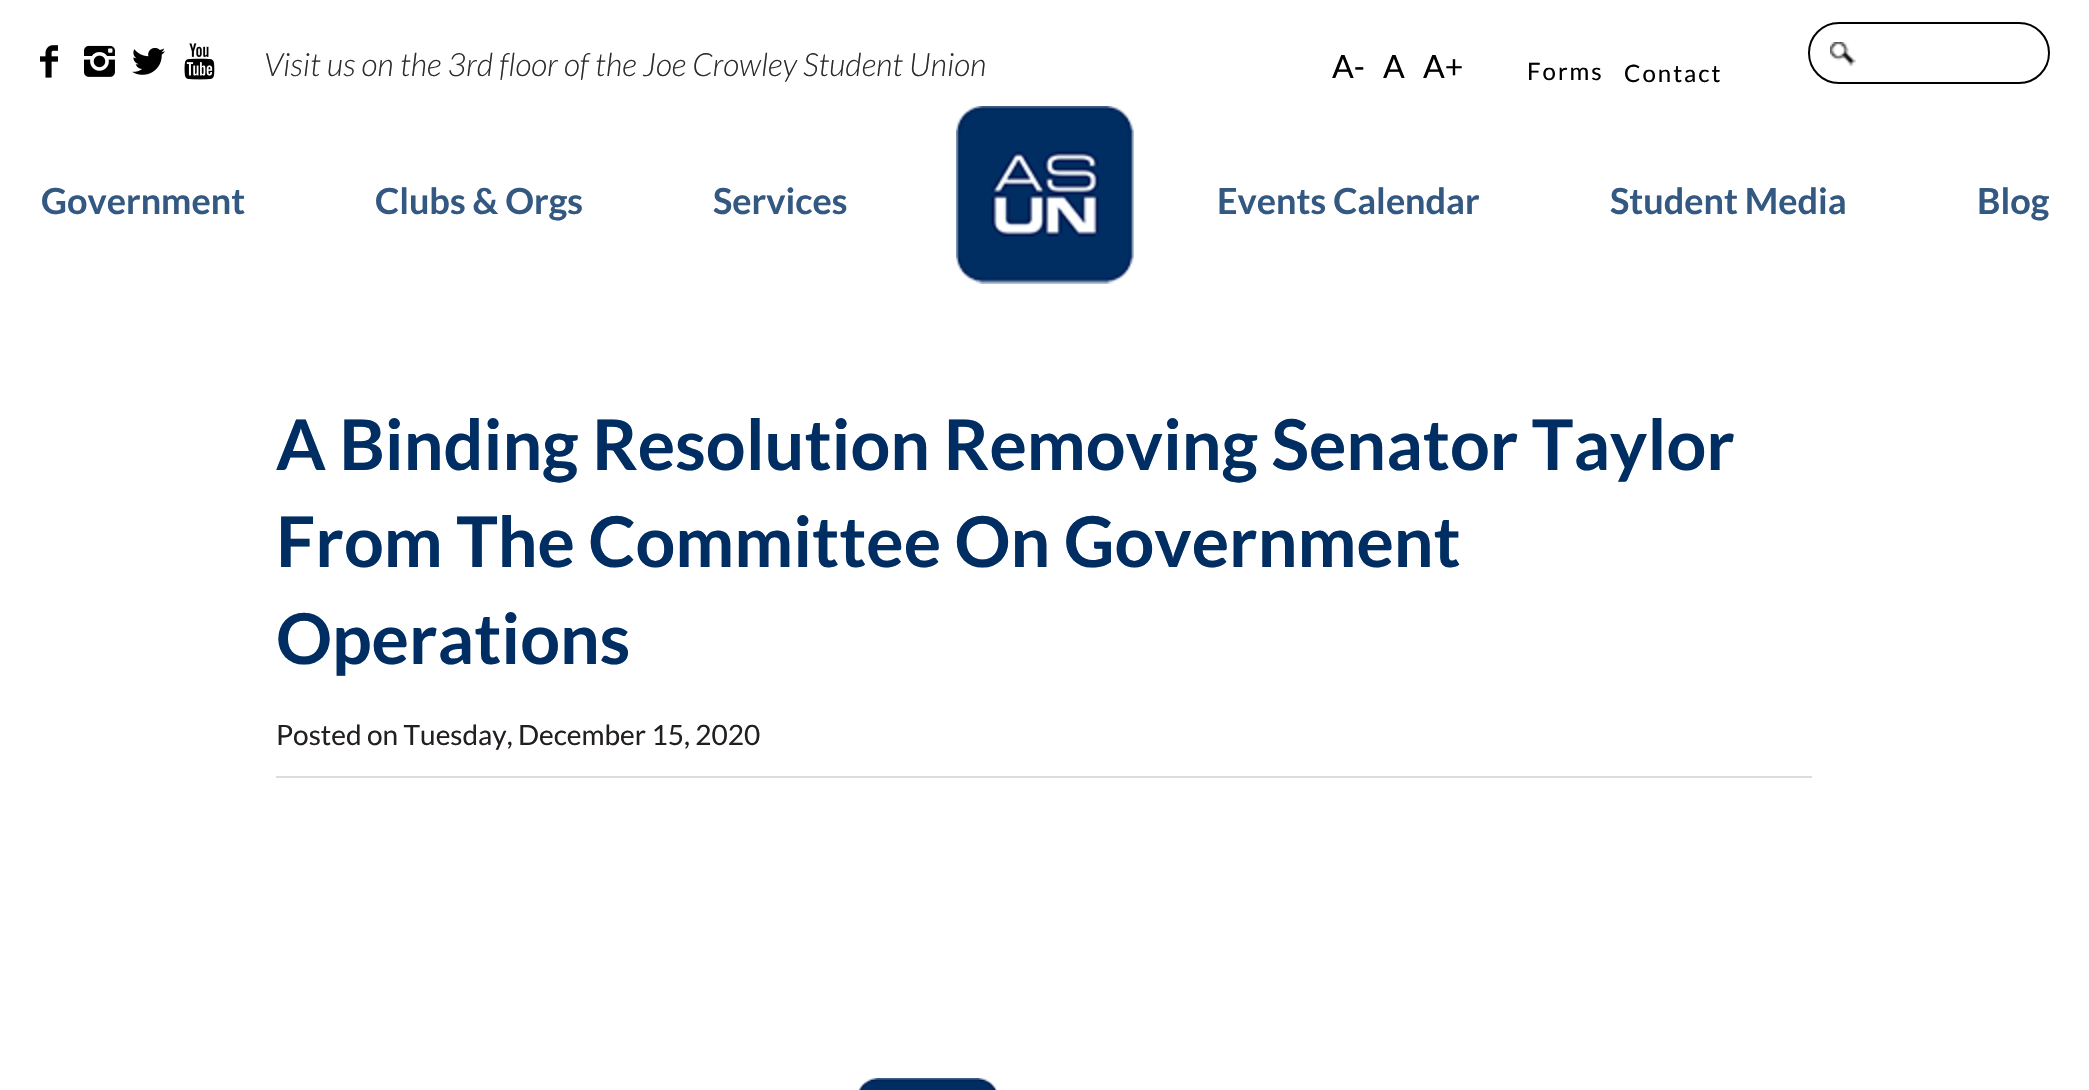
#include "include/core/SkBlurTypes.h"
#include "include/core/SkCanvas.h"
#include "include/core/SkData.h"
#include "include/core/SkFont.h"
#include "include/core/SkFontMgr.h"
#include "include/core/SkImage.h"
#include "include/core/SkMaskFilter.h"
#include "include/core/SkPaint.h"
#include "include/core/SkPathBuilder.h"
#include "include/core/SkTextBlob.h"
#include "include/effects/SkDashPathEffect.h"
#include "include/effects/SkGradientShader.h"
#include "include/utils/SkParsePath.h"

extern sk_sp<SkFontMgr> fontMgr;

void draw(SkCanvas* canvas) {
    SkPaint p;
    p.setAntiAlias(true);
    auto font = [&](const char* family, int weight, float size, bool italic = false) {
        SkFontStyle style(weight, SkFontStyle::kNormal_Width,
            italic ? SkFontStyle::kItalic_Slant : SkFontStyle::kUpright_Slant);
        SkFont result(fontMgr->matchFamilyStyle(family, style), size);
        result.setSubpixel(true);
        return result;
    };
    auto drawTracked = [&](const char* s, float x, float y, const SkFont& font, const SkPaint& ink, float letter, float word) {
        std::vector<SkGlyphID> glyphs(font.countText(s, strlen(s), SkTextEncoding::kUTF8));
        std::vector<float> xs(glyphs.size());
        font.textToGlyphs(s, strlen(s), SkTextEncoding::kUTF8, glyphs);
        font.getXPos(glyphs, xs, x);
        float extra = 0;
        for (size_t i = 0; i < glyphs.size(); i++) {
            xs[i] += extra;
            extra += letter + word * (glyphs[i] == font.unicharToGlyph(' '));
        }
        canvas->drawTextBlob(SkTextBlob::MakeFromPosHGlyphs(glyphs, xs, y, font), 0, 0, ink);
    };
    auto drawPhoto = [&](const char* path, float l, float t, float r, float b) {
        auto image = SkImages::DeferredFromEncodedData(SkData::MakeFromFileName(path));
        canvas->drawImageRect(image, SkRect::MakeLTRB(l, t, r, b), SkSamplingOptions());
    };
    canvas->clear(0xFFFFFFFF);
    drawPhoto("media/1.png", 40, 45, 58, 78);
    drawPhoto("media/2.png", 84, 45, 115, 77);
    drawPhoto("media/3.png", 132, 47, 165, 75);
    drawPhoto("media/4.png", 184, 43, 215, 80);
    auto font1 = font("Lato", 300, 32, true);
    p.setColor(0xFF2B2B2B);
    canvas->drawString("Visit us on the 3rd floor of the Joe Crowley Student Union", 264, 76, font1, p);
    auto font2 = font("Lato", 400, 32);
    p.setColor(0xFF000000);
    {
        const struct { const char* s; float x, y; } items[] = {
            {"A-", 1332, 78},
            {"A", 1383, 78},
            {"A+", 1423, 78},
        };
        for (auto [s, x, y] : items) {
            canvas->drawString(s, x, y, font2, p);
        }
    }
    auto font3 = font("Lato", 400, 24);
    drawTracked("Forms", 1527, 80, font3, p, 2, 0);
    drawTracked("Contact", 1624, 82, font3, p, 2, 0);
    drawPhoto("media/5.png", 1830, 42, 1856, 66);
    p.setStyle(SkPaint::kStroke_Style);
    p.setStrokeWidth(2);
    canvas->drawRoundRect(SkRect::MakeLTRB(1809, 23, 2049, 83), 30, 30, p);
    drawPhoto("media/6.png", 956, 106, 1134, 284);
    auto font4 = font("Lato", 700, 36);
    p.setStyle(SkPaint::kFill_Style);
    p.setColor(0xFF335881);
    {
        const struct { const char* s; float x, y; } items[] = {
            {"Government", 41, 214},
            {"Clubs & Orgs", 375, 214},
            {"Services", 713, 214},
            {"Events Calendar", 1217, 214},
            {"Student Media", 1610, 214},
            {"Blog", 1977, 214},
        };
        for (auto [s, x, y] : items) {
            canvas->drawString(s, x, y, font4, p);
        }
    }
    p.setColor(0xFFDCDCDC);
    canvas->drawRect(SkRect::MakeLTRB(276, 776, 1812, 778), p);
    auto font5 = font("Lato", 700, 70);
    p.setColor(0xFF002E62);
    {
        const struct { const char* s; float x, y; } items[] = {
            {"A Binding Resolution Removing Senator Taylor", 276, 470},
            {"From The Committee On Government", 276, 567},
            {"Operations", 276, 664},
        };
        for (auto [s, x, y] : items) {
            canvas->drawString(s, x, y, font5, p);
        }
    }
    auto font6 = font("Lato", 400, 28);
    p.setColor(0xFF231F20);
    canvas->drawString("Posted on Tuesday, December 15, 2020", 276, 745, font6, p);
    drawPhoto("media/7.png", 858, 1078, 997, 1090);
}
